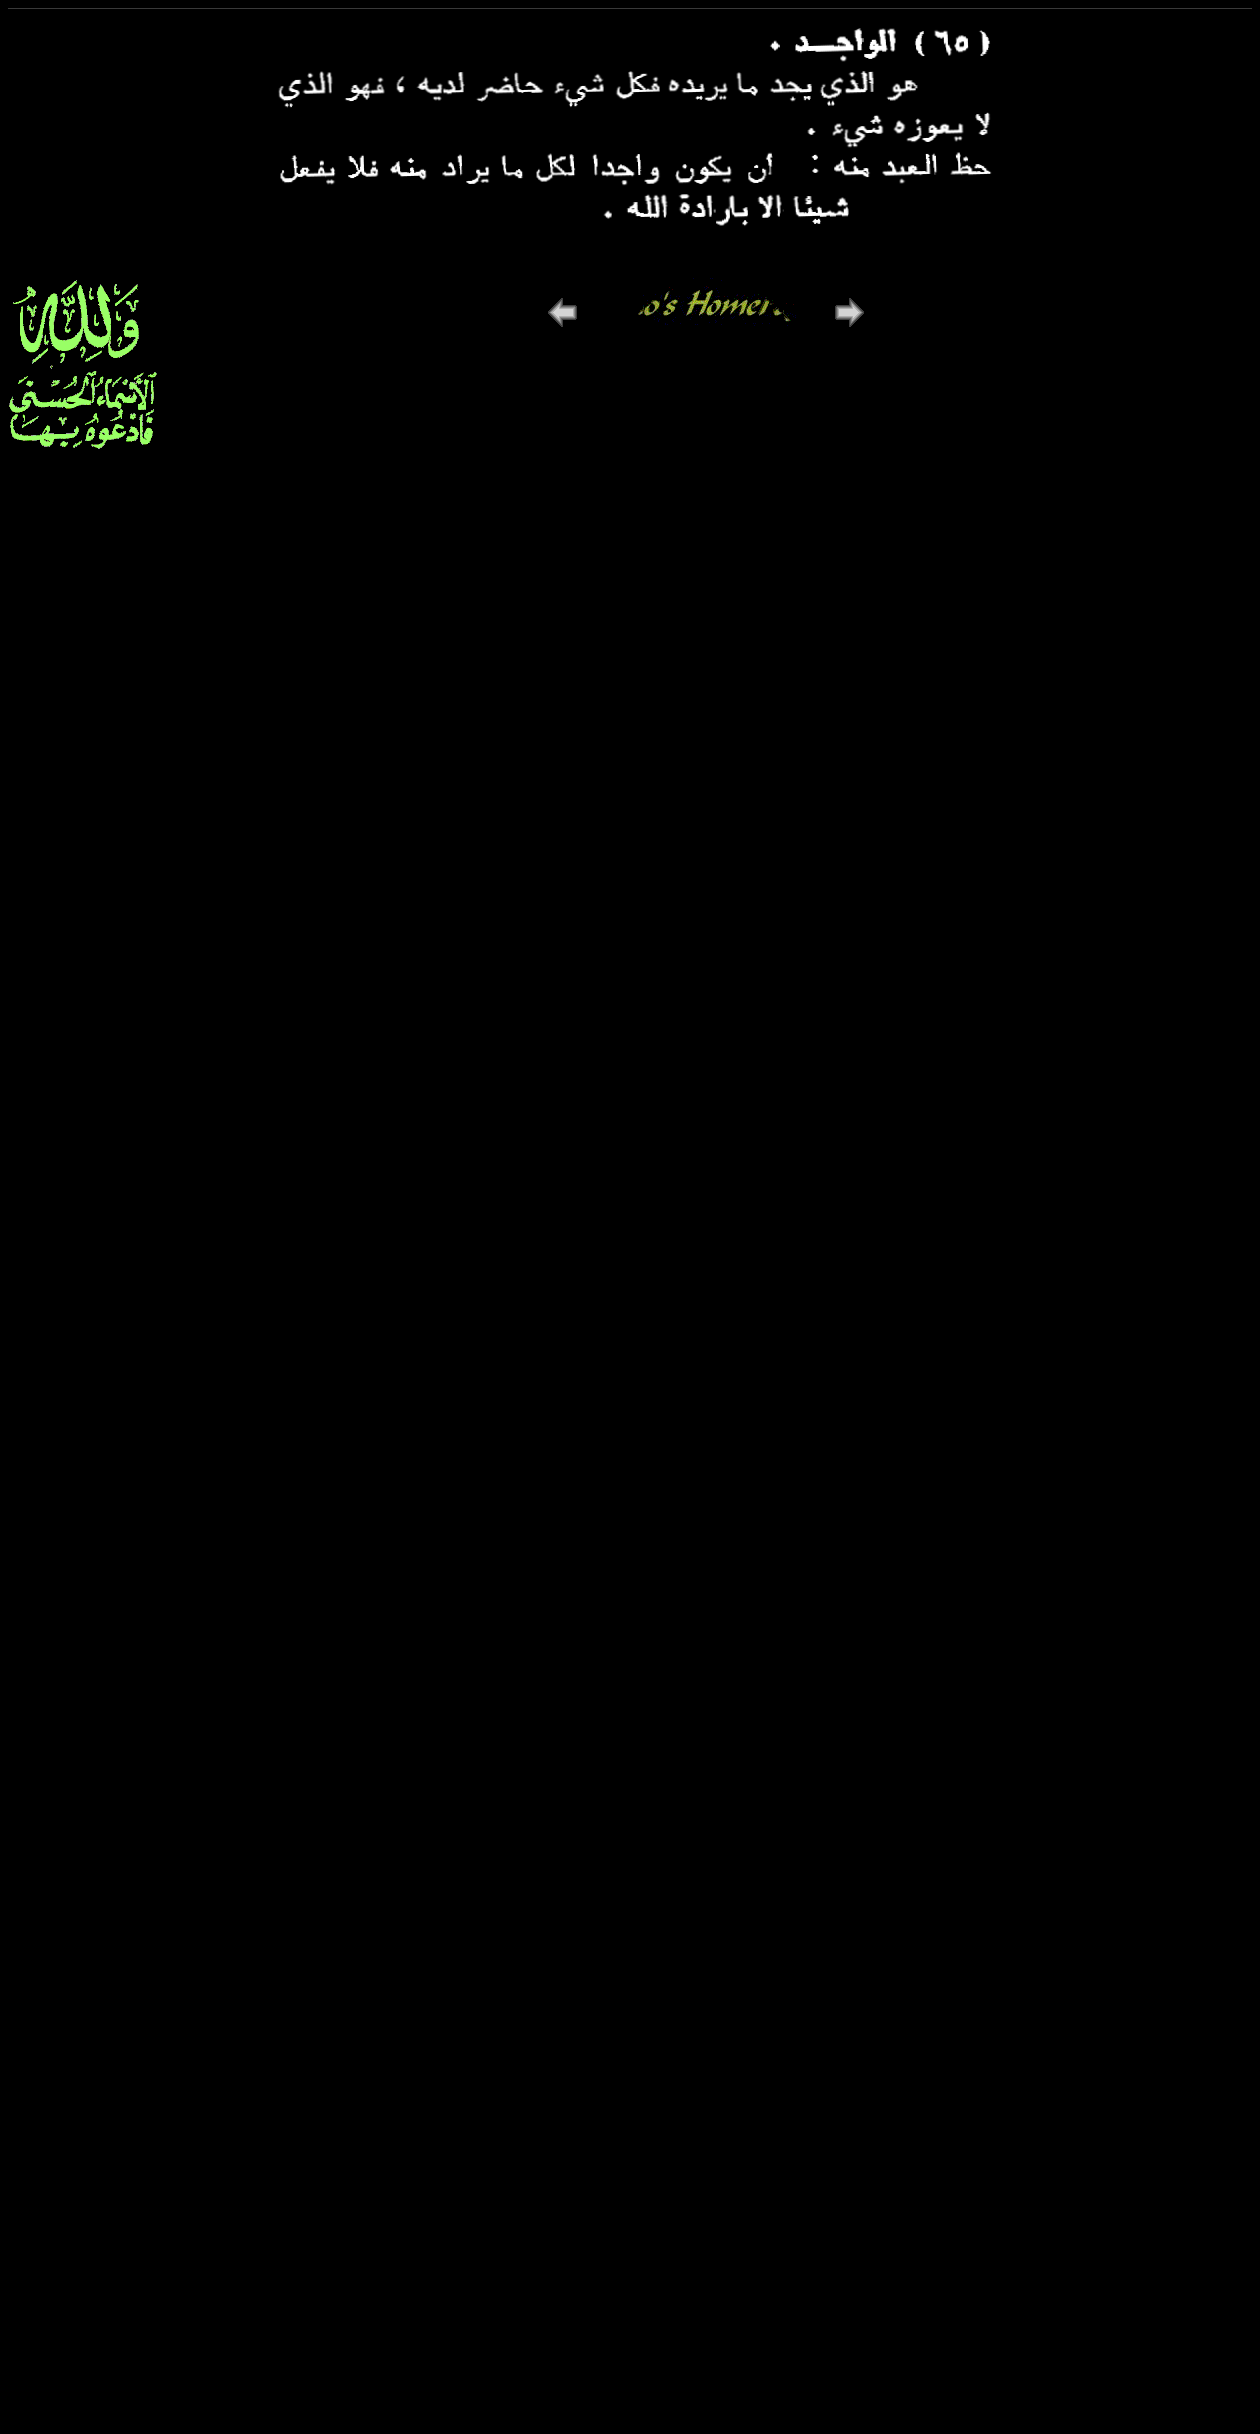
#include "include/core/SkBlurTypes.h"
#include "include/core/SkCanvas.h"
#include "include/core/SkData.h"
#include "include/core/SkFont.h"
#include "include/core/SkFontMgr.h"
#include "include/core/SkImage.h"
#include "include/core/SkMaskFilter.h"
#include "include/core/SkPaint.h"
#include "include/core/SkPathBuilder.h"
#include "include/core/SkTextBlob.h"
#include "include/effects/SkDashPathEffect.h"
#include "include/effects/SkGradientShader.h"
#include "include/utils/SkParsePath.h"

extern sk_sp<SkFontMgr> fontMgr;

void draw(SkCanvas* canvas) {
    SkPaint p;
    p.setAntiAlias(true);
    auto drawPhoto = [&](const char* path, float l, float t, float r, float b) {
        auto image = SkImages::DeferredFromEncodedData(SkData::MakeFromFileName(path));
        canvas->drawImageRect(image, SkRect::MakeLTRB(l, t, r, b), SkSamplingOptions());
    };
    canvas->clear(0xFF000000);
    p.setColor(0xFF393939);
    canvas->drawRect(SkRect::MakeLTRB(8, 8, 1252, 9), p);
    drawPhoto("media/1.png", 278, 28, 992, 227);
    drawPhoto("media/2.png", 9, 280, 157, 449);
    drawPhoto("media/3.png", 548, 298, 577, 327);
    drawPhoto("media/4.png", 638, 278, 796, 326);
    drawPhoto("media/5.png", 835, 298, 864, 327);
}
